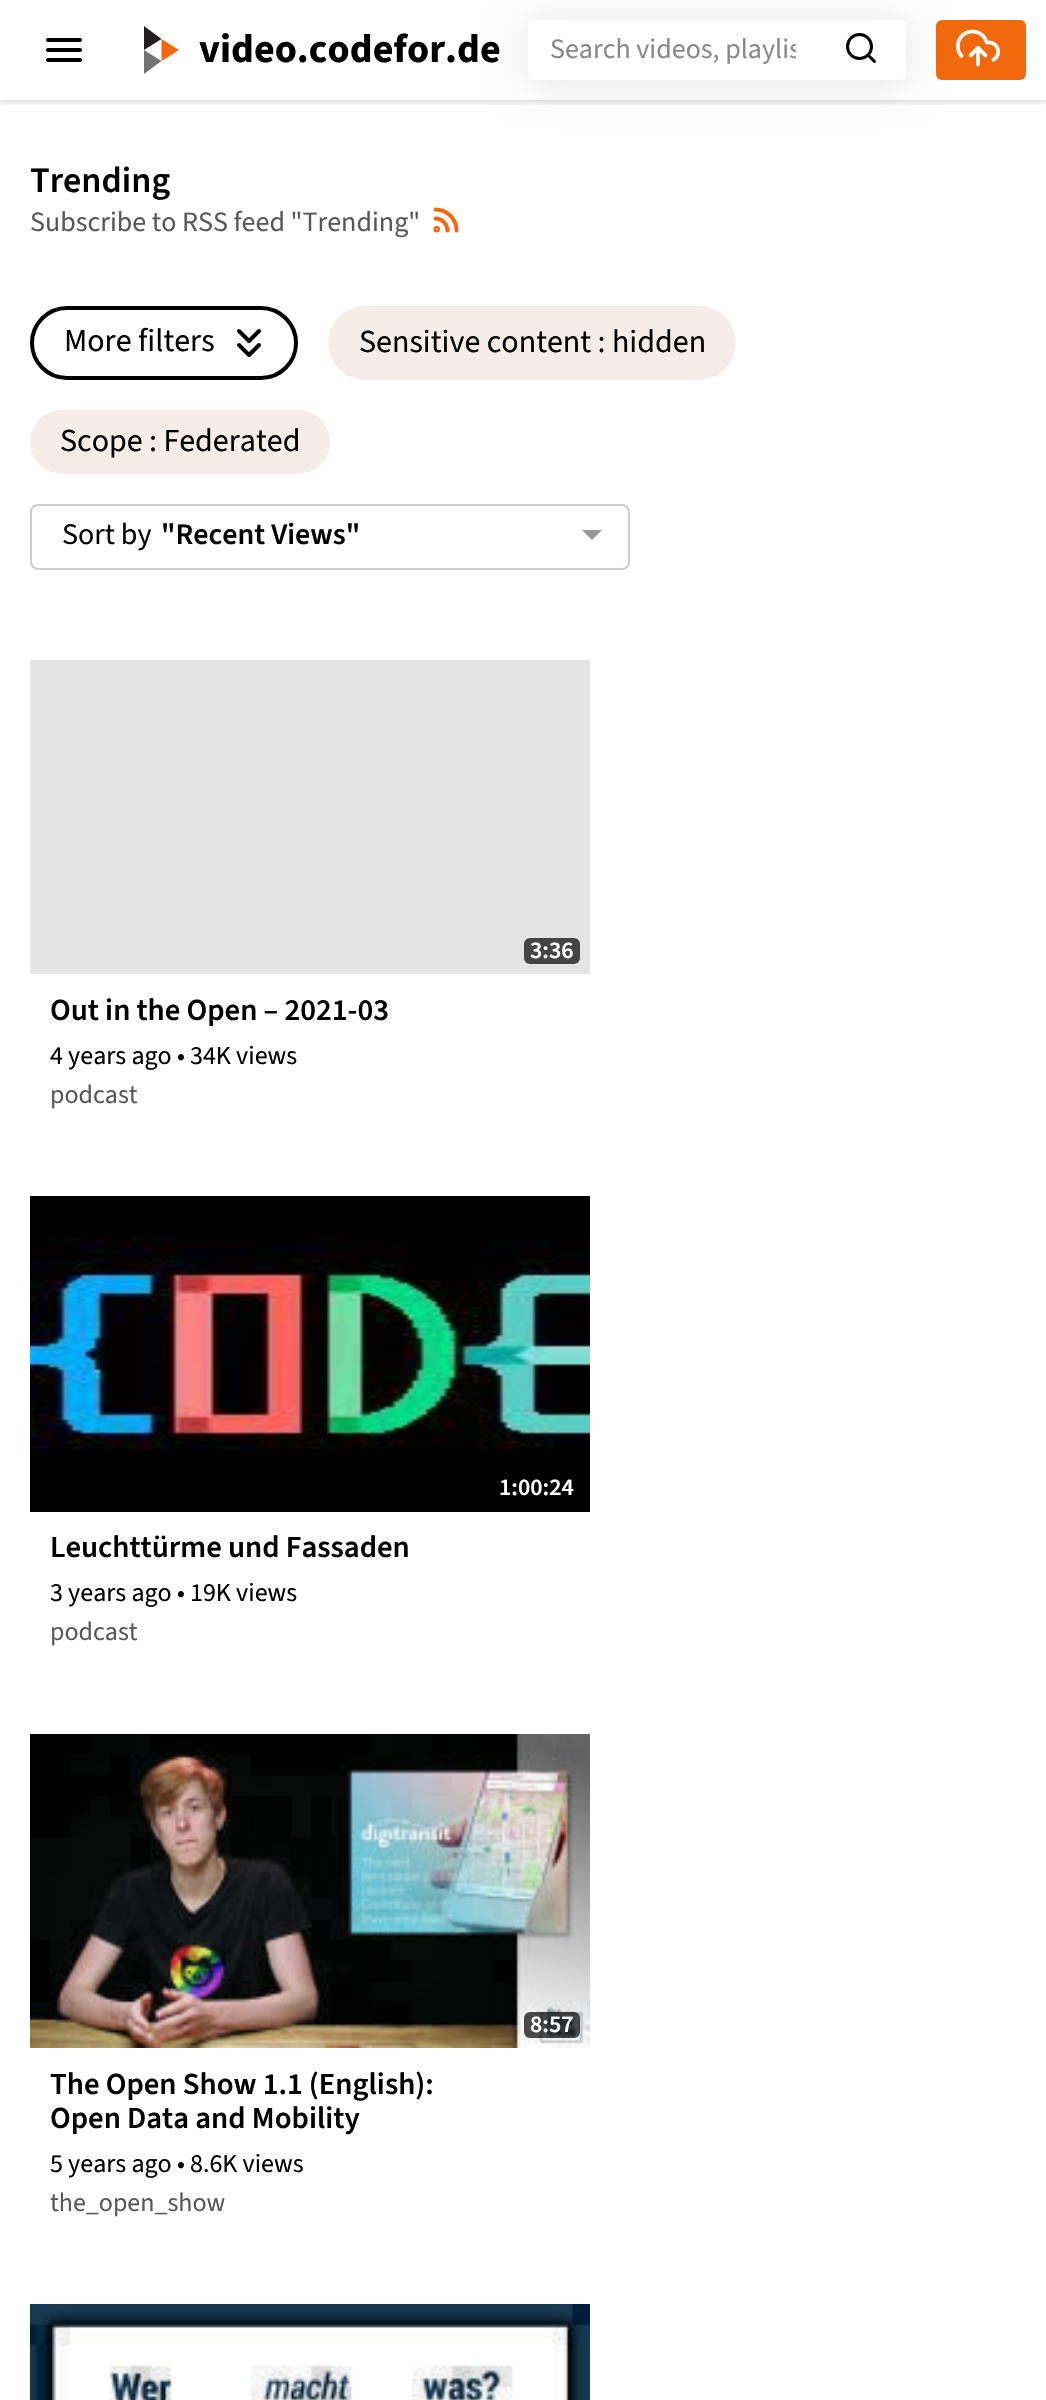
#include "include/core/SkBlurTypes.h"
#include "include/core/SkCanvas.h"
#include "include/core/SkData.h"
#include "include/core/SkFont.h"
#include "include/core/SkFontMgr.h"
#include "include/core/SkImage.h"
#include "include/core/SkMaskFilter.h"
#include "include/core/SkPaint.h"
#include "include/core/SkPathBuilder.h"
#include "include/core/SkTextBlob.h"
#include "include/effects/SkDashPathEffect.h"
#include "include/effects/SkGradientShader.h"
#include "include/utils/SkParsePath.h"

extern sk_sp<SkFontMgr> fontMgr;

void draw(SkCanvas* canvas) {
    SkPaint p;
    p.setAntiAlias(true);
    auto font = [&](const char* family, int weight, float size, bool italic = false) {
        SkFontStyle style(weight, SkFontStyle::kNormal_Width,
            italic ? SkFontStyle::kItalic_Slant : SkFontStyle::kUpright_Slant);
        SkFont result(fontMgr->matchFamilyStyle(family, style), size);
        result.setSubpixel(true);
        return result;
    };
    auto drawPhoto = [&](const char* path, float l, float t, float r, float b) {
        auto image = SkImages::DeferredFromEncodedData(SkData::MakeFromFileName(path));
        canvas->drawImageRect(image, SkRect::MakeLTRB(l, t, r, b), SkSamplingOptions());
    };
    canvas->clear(0xFFFFFFFF);
    canvas->save();
    canvas->clipRect(SkRect::MakeLTRB(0, 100, 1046, 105));
    p.setColor(0x29000000);
    p.setMaskFilter(SkMaskFilter::MakeBlur(kNormal_SkBlurStyle, 3));
    canvas->drawRect(SkRect::MakeLTRB(0, 2, 1046, 102), p);
    p.setMaskFilter(nullptr);
    canvas->restore();
    drawPhoto("media/1.png", 46, 38, 82, 62);
    p.setColor(0xFF211F20);
    canvas->drawPath(SkPathBuilder().moveTo(144, 26).lineTo(144, 50).lineTo(161.5f, 39).detach(), p);
    p.setColor(0xFF737373);
    canvas->drawPath(SkPathBuilder().moveTo(144, 50).lineTo(144, 74).lineTo(161.5f, 61).detach(), p);
    p.setColor(0xFFF1680D);
    canvas->drawPath(SkPathBuilder().moveTo(161.5f, 39).lineTo(161.5f, 61).lineTo(179, 50).detach(), p);
    p.setColor(0xFFF2690D);
    canvas->drawRoundRect(SkRect::MakeLTRB(936, 20, 1026, 80), 6, 6, p);
    p.setColor(0x1A000000);
    p.setMaskFilter(SkMaskFilter::MakeBlur(kNormal_SkBlurStyle, 20));
    canvas->drawRoundRect(SkRect::MakeLTRB(528, 22, 906, 82), 6, 6, p);
    p.setMaskFilter(nullptr);
    auto font1 = font("Source Sans 3", 700, 40);
    p.setColor(0xFF000000);
    canvas->drawString("video.codefor.de", 199, 62, font1, p);
    p.setColor(0xFFFFFFFF);
    canvas->drawRoundRect(SkRect::MakeLTRB(528, 20, 906, 80), 6, 6, p);
    canvas->save();
    canvas->clipRect(SkRect::MakeLTRB(550, 30, 796, 70));
    auto font2 = font("Source Sans 3", 400, 28);
    p.setColor(0xFF898989);
    canvas->drawString("Search videos, playlis", 550, 58, font2, p);
    canvas->restore();
    p.setStyle(SkPaint::kStroke_Style);
    p.setStrokeWidth(3);
    p.setColor(0xFF000000);
    canvas->drawCircle(859.5f, 46.5f, 12, p);
    p.setStrokeCap(SkPaint::kRound_Cap);
    p.setStrokeJoin(SkPaint::kRound_Join);
    canvas->drawPath(SkPathBuilder().moveTo(874.5f, 61.5f).lineTo(868, 55).detach(), p);
    drawPhoto("media/2.png", 956, 29, 1000, 67);
    auto font3 = font("Source Sans 3", 600, 36);
    p.setStyle(SkPaint::kFill_Style);
    canvas->drawString("Trending", 30, 192, font3, p);
    p.setColor(0xFF585858);
    canvas->drawString("Subscribe to RSS feed \"Trending\"", 30, 231, font2, p);
    p.setStyle(SkPaint::kStroke_Style);
    p.setStrokeWidth(4);
    p.setColor(0xFFF2690D);
    canvas->drawPath(SkPathBuilder().moveTo(435.5f, 218.5f).cubicTo(442, 218.5f, 447.5f, 224, 447.5f, 230.5f).moveTo(435.5f, 209.5f).cubicTo(447, 209.5f, 456.5f, 219, 456.5f, 230.5f).detach(), p);
    p.setStrokeCap(SkPaint::kButt_Cap);
    p.setStrokeJoin(SkPaint::kMiter_Join);
    canvas->drawCircle(436.7f, 229.3f, 1.3f, p);
    p.setColor(0xFF000000);
    canvas->drawRoundRect(SkRect::MakeLTRB(32, 308, 296, 378), 35, 35, p);
    auto font4 = font("Source Sans 3", 400, 32);
    p.setStyle(SkPaint::kFill_Style);
    canvas->drawString("More filters", 64, 351, font4, p);
    p.setStyle(SkPaint::kStroke_Style);
    p.setStrokeCap(SkPaint::kRound_Cap);
    p.setStrokeJoin(SkPaint::kRound_Join);
    canvas->drawPath(SkPathBuilder().moveTo(239, 345).lineTo(249, 355).lineTo(259, 345).moveTo(239, 331).lineTo(249, 341).lineTo(259, 331).detach(), p);
    p.setStyle(SkPaint::kFill_Style);
    p.setColor(0xFFF6EDE8);
    canvas->drawRoundRect(SkRect::MakeLTRB(328, 306, 736, 380), 37, 37, p);
    p.setColor(0xFF000000);
    canvas->drawString("Sensitive content : hidden", 359, 352, font4, p);
    p.setColor(0xFFF6EDE8);
    canvas->drawRoundRect(SkRect::MakeLTRB(30, 410, 330, 474), 32, 32, p);
    p.setColor(0xFF000000);
    canvas->drawString("Scope : Federated", 60, 451, font4, p);
    p.setStyle(SkPaint::kStroke_Style);
    p.setStrokeWidth(2);
    p.setStrokeCap(SkPaint::kButt_Cap);
    p.setStrokeJoin(SkPaint::kMiter_Join);
    p.setColor(0xFFCCCCCC);
    canvas->drawRoundRect(SkRect::MakeLTRB(31, 505, 629, 569), 7, 7, p);
    auto font5 = font("Source Sans 3", 400, 30);
    p.setStyle(SkPaint::kFill_Style);
    p.setColor(0xFF000000);
    canvas->drawString("Sort by", 62, 544, font5, p);
    auto font6 = font("Source Sans 3", 600, 30);
    canvas->drawString("\"Recent Views\"", 161, 544, font6, p);
    p.setColor(0xFF999999);
    canvas->drawPath(SkPathBuilder().moveTo(582, 530).lineTo(602, 530).lineTo(592, 540).close().detach(), p);
    p.setColor(0xFFE5E5E5);
    canvas->drawRect(SkRect::MakeLTRB(30, 660, 590, 974), p);
    p.setColor(0xFF454545);
    canvas->drawRoundRect(SkRect::MakeLTRB(524, 938, 580, 964), 6, 6, p);
    auto font7 = font("Source Sans 3", 600, 24);
    p.setColor(0xFFFFFFFF);
    canvas->drawString("3:36", 530, 958, font7, p);
    auto font8 = font("Source Sans 3", 600, 30.75f);
    p.setColor(0xFF000000);
    canvas->drawString("Out in the Open – 2021-03", 50, 1020, font8, p);
    auto font9 = font("Source Sans 3", 400, 26);
    canvas->drawString("4 years ago • 34K views", 50, 1064, font9, p);
    p.setColor(0xFF585858);
    canvas->drawString("podcast", 50, 1103, font9, p);
    drawPhoto("media/3.png", 30, 1196, 590, 1512);
    p.setColor(0xFFFFFFFF);
    canvas->drawString("1:00:24", 499, 1495, font7, p);
    p.setColor(0xFF000000);
    canvas->drawString("Leuchttürme und Fassaden", 50, 1557, font8, p);
    canvas->drawString("3 years ago • 19K views", 50, 1601, font9, p);
    p.setColor(0xFF585858);
    canvas->drawString("podcast", 50, 1640, font9, p);
    drawPhoto("media/4.png", 30, 1734, 590, 2048);
    p.setColor(0xB3000000);
    canvas->drawRoundRect(SkRect::MakeLTRB(524, 2012, 580, 2038), 6, 6, p);
    p.setColor(0xFFFFFFFF);
    canvas->drawString("8:57", 530, 2032, font7, p);
    p.setColor(0xFF000000);
    canvas->drawString("The Open Show 1.1 (English):", 50, 2094, font8, p);
    canvas->drawString("Open Data and Mobility", 50, 2128, font8, p);
    canvas->drawString("5 years ago • 8.6K views", 50, 2172, font9, p);
    p.setColor(0xFF585858);
    canvas->drawString("the_open_show", 50, 2211, font9, p);
    drawPhoto("media/5.png", 30, 2304, 590, 2400);
}
